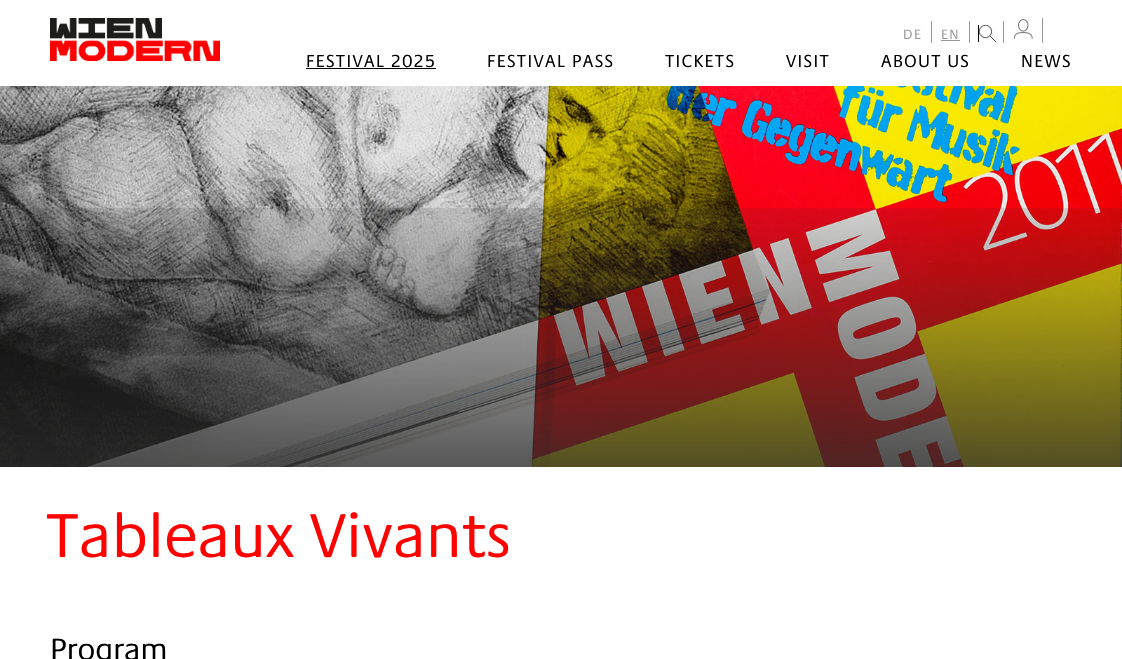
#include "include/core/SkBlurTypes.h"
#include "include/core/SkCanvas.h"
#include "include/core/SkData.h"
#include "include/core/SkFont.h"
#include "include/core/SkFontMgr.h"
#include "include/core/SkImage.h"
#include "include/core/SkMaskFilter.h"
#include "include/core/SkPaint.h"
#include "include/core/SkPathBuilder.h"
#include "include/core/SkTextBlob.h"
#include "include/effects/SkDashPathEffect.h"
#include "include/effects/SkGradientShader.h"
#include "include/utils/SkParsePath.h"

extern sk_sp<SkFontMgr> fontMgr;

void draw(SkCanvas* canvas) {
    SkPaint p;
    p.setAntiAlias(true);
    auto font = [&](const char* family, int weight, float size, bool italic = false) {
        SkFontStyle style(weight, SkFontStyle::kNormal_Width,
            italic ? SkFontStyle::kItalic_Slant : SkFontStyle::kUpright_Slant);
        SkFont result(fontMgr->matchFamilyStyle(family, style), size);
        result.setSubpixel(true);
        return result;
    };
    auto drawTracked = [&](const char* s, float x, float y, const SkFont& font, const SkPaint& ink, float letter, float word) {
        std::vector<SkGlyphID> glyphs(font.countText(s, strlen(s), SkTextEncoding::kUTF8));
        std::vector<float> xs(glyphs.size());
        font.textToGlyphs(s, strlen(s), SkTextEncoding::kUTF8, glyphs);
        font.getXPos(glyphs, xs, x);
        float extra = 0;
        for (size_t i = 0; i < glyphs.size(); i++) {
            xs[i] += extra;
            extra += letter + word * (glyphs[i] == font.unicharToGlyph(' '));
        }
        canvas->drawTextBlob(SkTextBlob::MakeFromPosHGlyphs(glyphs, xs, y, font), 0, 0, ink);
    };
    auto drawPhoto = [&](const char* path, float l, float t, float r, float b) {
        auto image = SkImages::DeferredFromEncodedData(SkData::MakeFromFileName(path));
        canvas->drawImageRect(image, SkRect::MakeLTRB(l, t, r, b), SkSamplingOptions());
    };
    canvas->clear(0xFFFFFFFF);
    drawPhoto("media/1.png", 50, 18, 220, 61);
    p.setColor(0xFF999999);
    canvas->drawRect(SkRect::MakeLTRB(1042, 18, 1043, 43), p);
    drawPhoto("media/2.png", 1013, 19, 1033, 39);
    canvas->drawRect(SkRect::MakeLTRB(931, 21, 932, 43), p);
    auto font1 = font("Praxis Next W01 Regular", 400, 14);
    drawTracked("DE", 903, 39, font1, p, 1.4f, 0);
    canvas->drawRect(SkRect::MakeLTRB(969, 21, 970, 43), p);
    drawTracked("EN", 941, 39, font1, p, 1.4f, 0);
    canvas->drawRect(SkRect::MakeLTRB(941, 40, 960, 41), p);
    canvas->drawRect(SkRect::MakeLTRB(1003, 21, 1004, 43), p);
    canvas->save();
    canvas->clipRect(SkRect::MakeLTRB(970, 25, 979, 44));
    p.setStyle(SkPaint::kStroke_Style);
    p.setStrokeWidth(1);
    p.setColor(0xFF000000);
    canvas->drawRect(SkRect::MakeLTRB(978.5f, 24.5f, 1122.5f, 41.5f), p);
    canvas->restore();
    drawPhoto("media/3.png", 979, 25, 997, 43);
    auto font2 = font("Praxis Next W01 Regular", 400, 18);
    p.setStyle(SkPaint::kFill_Style);
    drawTracked("FESTIVAL 2025", 306, 67, font2, p, 1.4f, 0);
    canvas->drawRect(SkRect::MakeLTRB(306, 68, 436, 69), p);
    {
        const struct { const char* s; float x, y; } items[] = {
            {"FESTIVAL PASS", 487, 67},
            {"TICKETS", 665, 67},
            {"VISIT", 786, 67},
            {"ABOUT US", 881, 67},
            {"NEWS", 1021, 67},
        };
        for (auto [s, x, y] : items) {
            drawTracked(s, x, y, font2, p, 1.4f, 0);
        }
    }
    drawPhoto("media/4.png", 0, 86, 1122, 467);
    auto font3 = font("Praxis Next W01 Regular", 400, 64);
    p.setColor(0xFFFF0200);
    canvas->drawString("Tableaux Vivants", 46, 557, font3, p);
    auto font4 = font("Praxis Next W01 Regular", 400, 32);
    p.setColor(0xFF000000);
    canvas->drawString("Program", 50, 660, font4, p);
}
